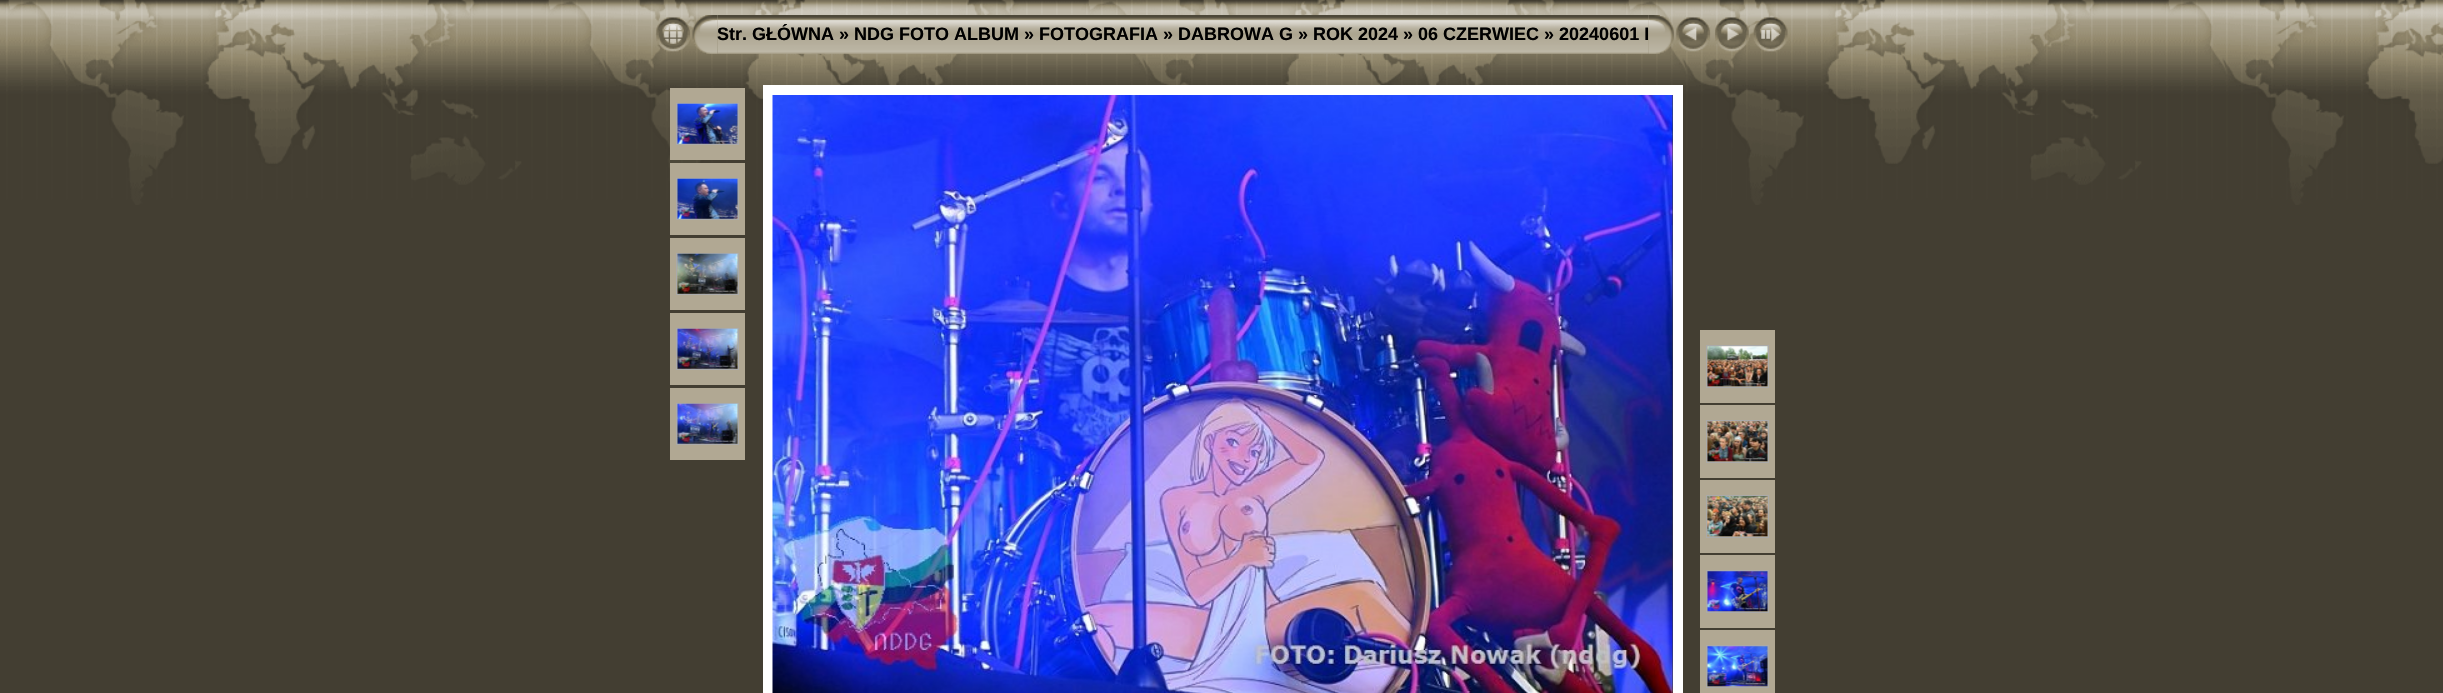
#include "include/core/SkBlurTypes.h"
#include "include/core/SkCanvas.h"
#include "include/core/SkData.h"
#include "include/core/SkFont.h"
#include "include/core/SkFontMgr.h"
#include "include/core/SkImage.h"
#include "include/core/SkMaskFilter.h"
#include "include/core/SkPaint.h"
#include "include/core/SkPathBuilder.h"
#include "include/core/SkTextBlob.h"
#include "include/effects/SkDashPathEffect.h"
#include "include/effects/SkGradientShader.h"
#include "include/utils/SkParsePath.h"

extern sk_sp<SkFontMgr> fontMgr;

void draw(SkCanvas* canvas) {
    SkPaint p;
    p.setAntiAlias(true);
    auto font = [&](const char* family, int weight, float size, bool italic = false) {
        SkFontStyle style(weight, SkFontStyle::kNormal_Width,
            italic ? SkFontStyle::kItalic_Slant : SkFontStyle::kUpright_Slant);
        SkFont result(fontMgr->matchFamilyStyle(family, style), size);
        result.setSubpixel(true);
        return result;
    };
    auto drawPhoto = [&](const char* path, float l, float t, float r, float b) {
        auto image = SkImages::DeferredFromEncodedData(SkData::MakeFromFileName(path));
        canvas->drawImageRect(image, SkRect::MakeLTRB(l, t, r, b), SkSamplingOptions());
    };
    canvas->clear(0xFF433E32);
    drawPhoto("media/1.png", 0, 0, 2443, 205);
    drawPhoto("media/2.png", 656, 17, 690, 52);
    drawPhoto("media/4.png", 717, 15, 1649, 54);
    drawPhoto("media/3.png", 692, 15, 718, 54);
    auto font1 = font("Liberation Sans", 700, 18);
    p.setColor(0xFF000000);
    canvas->drawString("Str. GŁÓWNA » NDG FOTO ALBUM » FOTOGRAFIA » DABROWA G » ROK 2024 » 06 CZERWIEC » 20240601 I", 717, 40, font1, p);
    drawPhoto("media/5.png", 1648, 15, 1674, 54);
    drawPhoto("media/6.png", 1676, 17, 1711, 52);
    drawPhoto("media/7.png", 1715, 17, 1749, 52);
    drawPhoto("media/8.png", 1753, 17, 1788, 52);
    p.setColor(0xFFB1A893);
    canvas->drawRect(SkRect::MakeLTRB(670, 88, 745, 160), p);
    p.setStyle(SkPaint::kStroke_Style);
    p.setStrokeWidth(1);
    p.setColor(0xFFAAAAAA);
    canvas->drawRect(SkRect::MakeLTRB(676.5f, 103.5f, 738.5f, 144.5f), p);
    drawPhoto("media/9.png", 677, 103, 738, 144);
    p.setStyle(SkPaint::kFill_Style);
    p.setColor(0xFFB1A893);
    canvas->drawRect(SkRect::MakeLTRB(670, 163, 745, 235), p);
    p.setStyle(SkPaint::kStroke_Style);
    p.setColor(0xFFAAAAAA);
    canvas->drawRect(SkRect::MakeLTRB(676.5f, 178.5f, 738.5f, 219.5f), p);
    drawPhoto("media/10.png", 677, 178, 738, 219);
    p.setStyle(SkPaint::kFill_Style);
    p.setColor(0xFFB1A893);
    canvas->drawRect(SkRect::MakeLTRB(670, 238, 745, 310), p);
    p.setStyle(SkPaint::kStroke_Style);
    p.setColor(0xFFAAAAAA);
    canvas->drawRect(SkRect::MakeLTRB(676.5f, 253.5f, 738.5f, 294.5f), p);
    drawPhoto("media/11.png", 677, 253, 738, 294);
    p.setStyle(SkPaint::kFill_Style);
    p.setColor(0xFFB1A893);
    canvas->drawRect(SkRect::MakeLTRB(670, 313, 745, 385), p);
    p.setStyle(SkPaint::kStroke_Style);
    p.setColor(0xFFAAAAAA);
    canvas->drawRect(SkRect::MakeLTRB(676.5f, 328.5f, 738.5f, 369.5f), p);
    drawPhoto("media/12.png", 677, 328, 738, 369);
    p.setStyle(SkPaint::kFill_Style);
    p.setColor(0xFFB1A893);
    canvas->drawRect(SkRect::MakeLTRB(670, 388, 745, 460), p);
    p.setStyle(SkPaint::kStroke_Style);
    p.setColor(0xFFAAAAAA);
    canvas->drawRect(SkRect::MakeLTRB(676.5f, 403.5f, 738.5f, 444.5f), p);
    drawPhoto("media/13.png", 677, 403, 738, 444);
    p.setStrokeWidth(10);
    p.setColor(0xFFFFFFFF);
    canvas->drawRect(SkRect::MakeLTRB(768, 90, 1678, 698), p);
    drawPhoto("media/14.png", 772, 95, 1673, 693);
    p.setStyle(SkPaint::kFill_Style);
    p.setColor(0xFFB1A893);
    canvas->drawRect(SkRect::MakeLTRB(1700, 330, 1775, 403), p);
    p.setStyle(SkPaint::kStroke_Style);
    p.setStrokeWidth(1);
    p.setColor(0xFFAAAAAA);
    canvas->drawRect(SkRect::MakeLTRB(1706.5f, 345.5f, 1768.5f, 387.5f), p);
    drawPhoto("media/15.png", 1707, 346, 1768, 387);
    p.setStyle(SkPaint::kFill_Style);
    p.setColor(0xFFB1A893);
    canvas->drawRect(SkRect::MakeLTRB(1700, 405, 1775, 478), p);
    p.setStyle(SkPaint::kStroke_Style);
    p.setColor(0xFFAAAAAA);
    canvas->drawRect(SkRect::MakeLTRB(1706.5f, 420.5f, 1768.5f, 462.5f), p);
    drawPhoto("media/16.png", 1707, 421, 1768, 462);
    p.setStyle(SkPaint::kFill_Style);
    p.setColor(0xFFB1A893);
    canvas->drawRect(SkRect::MakeLTRB(1700, 480, 1775, 553), p);
    p.setStyle(SkPaint::kStroke_Style);
    p.setColor(0xFFAAAAAA);
    canvas->drawRect(SkRect::MakeLTRB(1706.5f, 495.5f, 1768.5f, 537.5f), p);
    drawPhoto("media/17.png", 1707, 496, 1768, 537);
    p.setStyle(SkPaint::kFill_Style);
    p.setColor(0xFFB1A893);
    canvas->drawRect(SkRect::MakeLTRB(1700, 555, 1775, 628), p);
    p.setStyle(SkPaint::kStroke_Style);
    p.setColor(0xFFAAAAAA);
    canvas->drawRect(SkRect::MakeLTRB(1706.5f, 570.5f, 1768.5f, 612.5f), p);
    drawPhoto("media/18.png", 1707, 571, 1768, 612);
    p.setStyle(SkPaint::kFill_Style);
    p.setColor(0xFFB1A893);
    canvas->drawRect(SkRect::MakeLTRB(1700, 630, 1775, 693), p);
    p.setStyle(SkPaint::kStroke_Style);
    p.setColor(0xFFAAAAAA);
    canvas->drawRect(SkRect::MakeLTRB(1706.5f, 645.5f, 1768.5f, 687.5f), p);
    drawPhoto("media/19.png", 1707, 646, 1768, 687);
}
